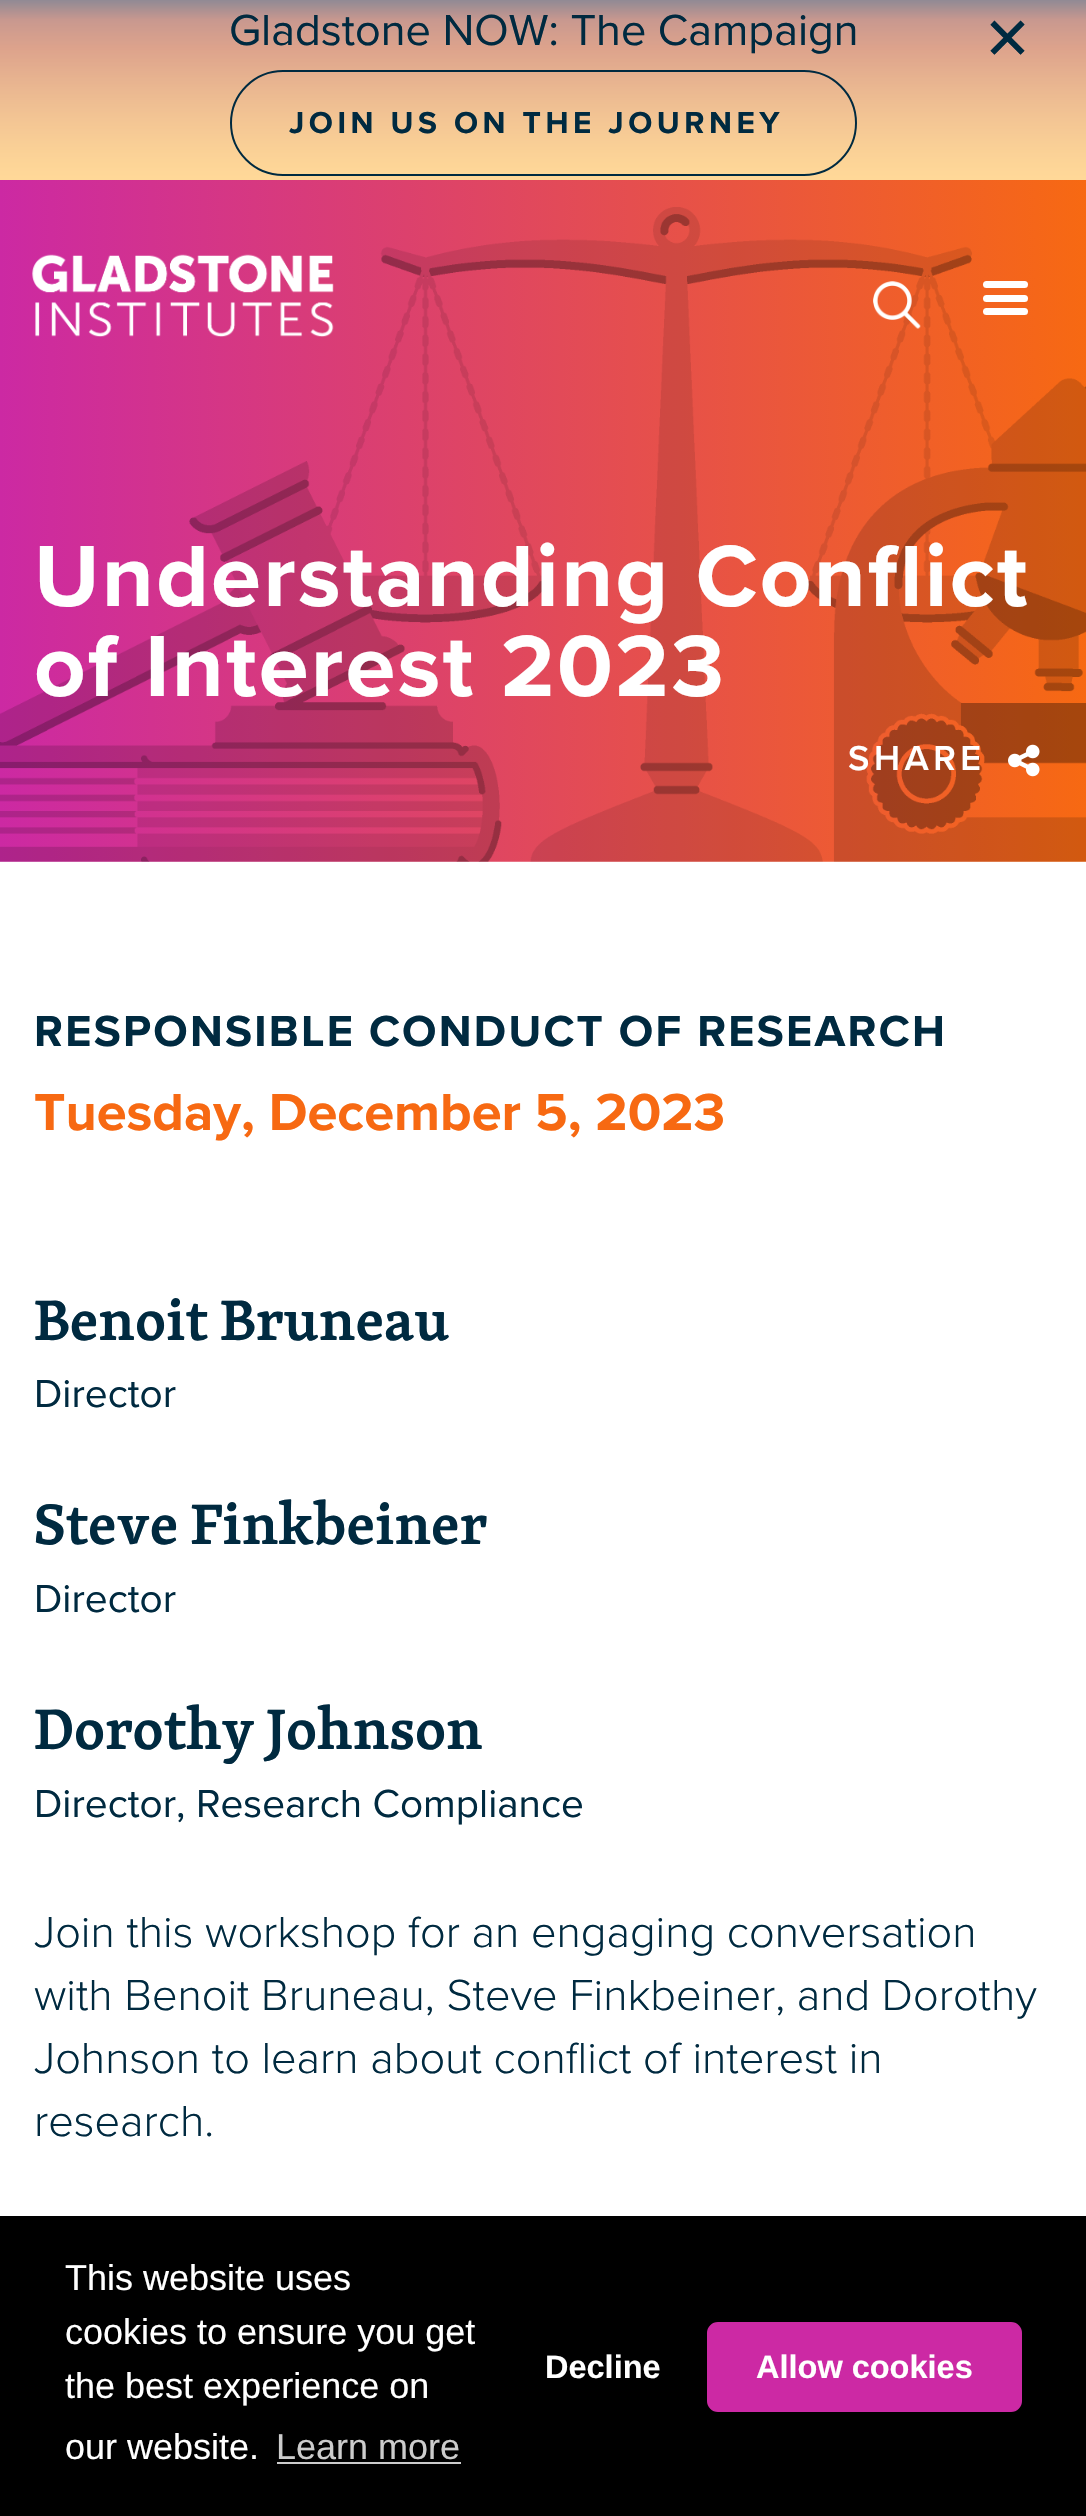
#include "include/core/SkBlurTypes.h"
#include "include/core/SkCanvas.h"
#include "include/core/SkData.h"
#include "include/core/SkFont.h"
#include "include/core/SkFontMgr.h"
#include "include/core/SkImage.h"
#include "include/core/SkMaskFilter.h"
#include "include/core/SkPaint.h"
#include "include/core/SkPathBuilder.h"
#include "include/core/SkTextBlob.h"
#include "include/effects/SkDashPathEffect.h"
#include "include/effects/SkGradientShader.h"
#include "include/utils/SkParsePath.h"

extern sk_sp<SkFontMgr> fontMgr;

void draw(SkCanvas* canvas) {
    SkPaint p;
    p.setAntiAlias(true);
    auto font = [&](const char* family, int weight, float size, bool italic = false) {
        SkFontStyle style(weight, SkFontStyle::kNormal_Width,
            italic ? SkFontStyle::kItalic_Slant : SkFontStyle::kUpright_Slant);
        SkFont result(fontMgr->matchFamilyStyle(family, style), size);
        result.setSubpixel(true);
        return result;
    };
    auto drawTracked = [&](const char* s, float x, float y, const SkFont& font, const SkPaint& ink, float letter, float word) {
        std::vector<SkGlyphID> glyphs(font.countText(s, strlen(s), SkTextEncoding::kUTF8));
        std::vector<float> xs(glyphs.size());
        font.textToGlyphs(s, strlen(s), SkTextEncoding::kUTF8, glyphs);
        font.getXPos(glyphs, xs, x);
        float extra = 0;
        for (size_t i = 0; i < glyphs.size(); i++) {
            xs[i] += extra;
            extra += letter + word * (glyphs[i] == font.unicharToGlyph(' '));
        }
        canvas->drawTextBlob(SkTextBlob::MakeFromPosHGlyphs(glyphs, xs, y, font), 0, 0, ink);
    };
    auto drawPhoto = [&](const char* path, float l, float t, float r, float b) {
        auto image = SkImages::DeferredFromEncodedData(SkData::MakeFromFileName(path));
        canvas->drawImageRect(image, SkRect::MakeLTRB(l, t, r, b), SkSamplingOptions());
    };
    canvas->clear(0xFFFFFFFF);
    drawPhoto("media/1.png", 0, 0, 1086, 180);
    auto font1 = font("Proxima Nova", 400, 45);
    p.setColor(0xFF002A40);
    canvas->drawString("Gladstone NOW: The Campaign", 229, 45, font1, p);
    auto font2 = font("DejaVu Sans", 400, 58.5f);
    canvas->drawString("✕", 983, 59, font2, p);
    p.setStyle(SkPaint::kStroke_Style);
    p.setStrokeWidth(2);
    canvas->drawRoundRect(SkRect::MakeLTRB(231, 71, 856, 175), 52, 52, p);
    auto font3 = font("Proxima Nova", 700, 31.5f);
    p.setStyle(SkPaint::kFill_Style);
    drawTracked("JOIN US ON THE JOURNEY", 289, 133, font3, p, 4.5f, 0);
    drawPhoto("media/2.png", 0, 180, 1086, 862);
    drawPhoto("media/3.png", 32, 254, 334, 337);
    p.setColor(0xFFFFFFFF);
    canvas->drawRoundRect(SkRect::MakeLTRB(983, 281, 1028, 288), 3.5f, 3.5f, p);
    canvas->drawRoundRect(SkRect::MakeLTRB(983, 295, 1028, 302), 3.5f, 3.5f, p);
    canvas->drawRoundRect(SkRect::MakeLTRB(983, 308, 1028, 315), 3.5f, 3.5f, p);
    drawPhoto("media/4.png", 873, 281, 921, 329);
    auto font4 = font("Proxima Nova", 700, 90);
    drawTracked("Understanding Conflict", 34, 606, font4, p, 2.25f, 0);
    drawTracked("of Interest 2023", 34, 696, font4, p, 2.25f, 0);
    auto font5 = font("Proxima Nova", 600, 36);
    drawTracked("SHARE", 848, 770, font5, p, 4.5f, 0);
    drawPhoto("media/5.png", 1008, 744, 1040, 777);
    auto font6 = font("Proxima Nova", 700, 45);
    p.setColor(0xFF002A40);
    drawTracked("RESPONSIBLE CONDUCT OF RESEARCH", 34, 1046, font6, p, 2.25f, 0);
    auto font7 = font("Proxima Nova", 700, 54);
    p.setColor(0xFFF76912);
    canvas->drawString("Tuesday, December 5, 2023", 34, 1130, font7, p);
    auto font8 = font("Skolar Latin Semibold", 600, 58.5f);
    p.setColor(0xFF002A40);
    canvas->drawString("Benoit Bruneau", 34, 1340, font8, p);
    auto font9 = font("Proxima Nova", 400, 40.5f);
    canvas->drawString("Director", 34, 1407, font9, p);
    canvas->drawString("Steve Finkbeiner", 34, 1544, font8, p);
    canvas->drawString("Director", 34, 1612, font9, p);
    canvas->drawString("Dorothy Johnson", 34, 1749, font8, p);
    canvas->drawString("Director, Research Compliance", 34, 1817, font9, p);
    auto font10 = font("Proxima Nova", 300, 45);
    {
        const struct { const char* s; float x, y; } items[] = {
            {"Join this workshop for an engaging conversation", 34, 1947},
            {"with Benoit Bruneau, Steve Finkbeiner, and Dorothy", 34, 2010},
            {"Johnson to learn about conflict of interest in", 34, 2073},
            {"research.", 34, 2136},
        };
        for (auto [s, x, y] : items) {
            canvas->drawString(s, x, y, font10, p);
        }
    }
    p.setColor(0xFF000000);
    canvas->drawRect(SkRect::MakeLTRB(0, 2216, 1086, 2516), p);
    auto font11 = font("Liberation Sans", 400, 36);
    p.setColor(0xFFFFFFFF);
    {
        const struct { const char* s; float x, y; } items[] = {
            {"This website uses", 65, 2290},
            {"cookies to ensure you get", 65, 2344},
            {"the best experience on", 65, 2398},
            {"our website.", 65, 2459},
        };
        for (auto [s, x, y] : items) {
            canvas->drawString(s, x, y, font11, p);
        }
    }
    p.setColor(0xFFCCCCCC);
    canvas->drawString("Learn more", 276, 2459, font11, p);
    canvas->drawRect(SkRect::MakeLTRB(277, 2462, 461, 2464), p);
    auto font12 = font("Liberation Sans", 700, 32.5f);
    p.setColor(0xFFFFFFFF);
    canvas->drawString("Decline", 545, 2378, font12, p);
    p.setColor(0xFFCC29A4);
    canvas->drawRoundRect(SkRect::MakeLTRB(709.5f, 2324.5f, 1019.5f, 2409.5f), 8.5f, 8.5f, p);
    p.setStyle(SkPaint::kStroke_Style);
    p.setStrokeWidth(5);
    canvas->drawRoundRect(SkRect::MakeLTRB(709.5f, 2324.5f, 1019.5f, 2409.5f), 8.5f, 8.5f, p);
    p.setStyle(SkPaint::kFill_Style);
    p.setColor(0xFFFFFFFF);
    canvas->drawString("Allow cookies", 756, 2378, font12, p);
}
